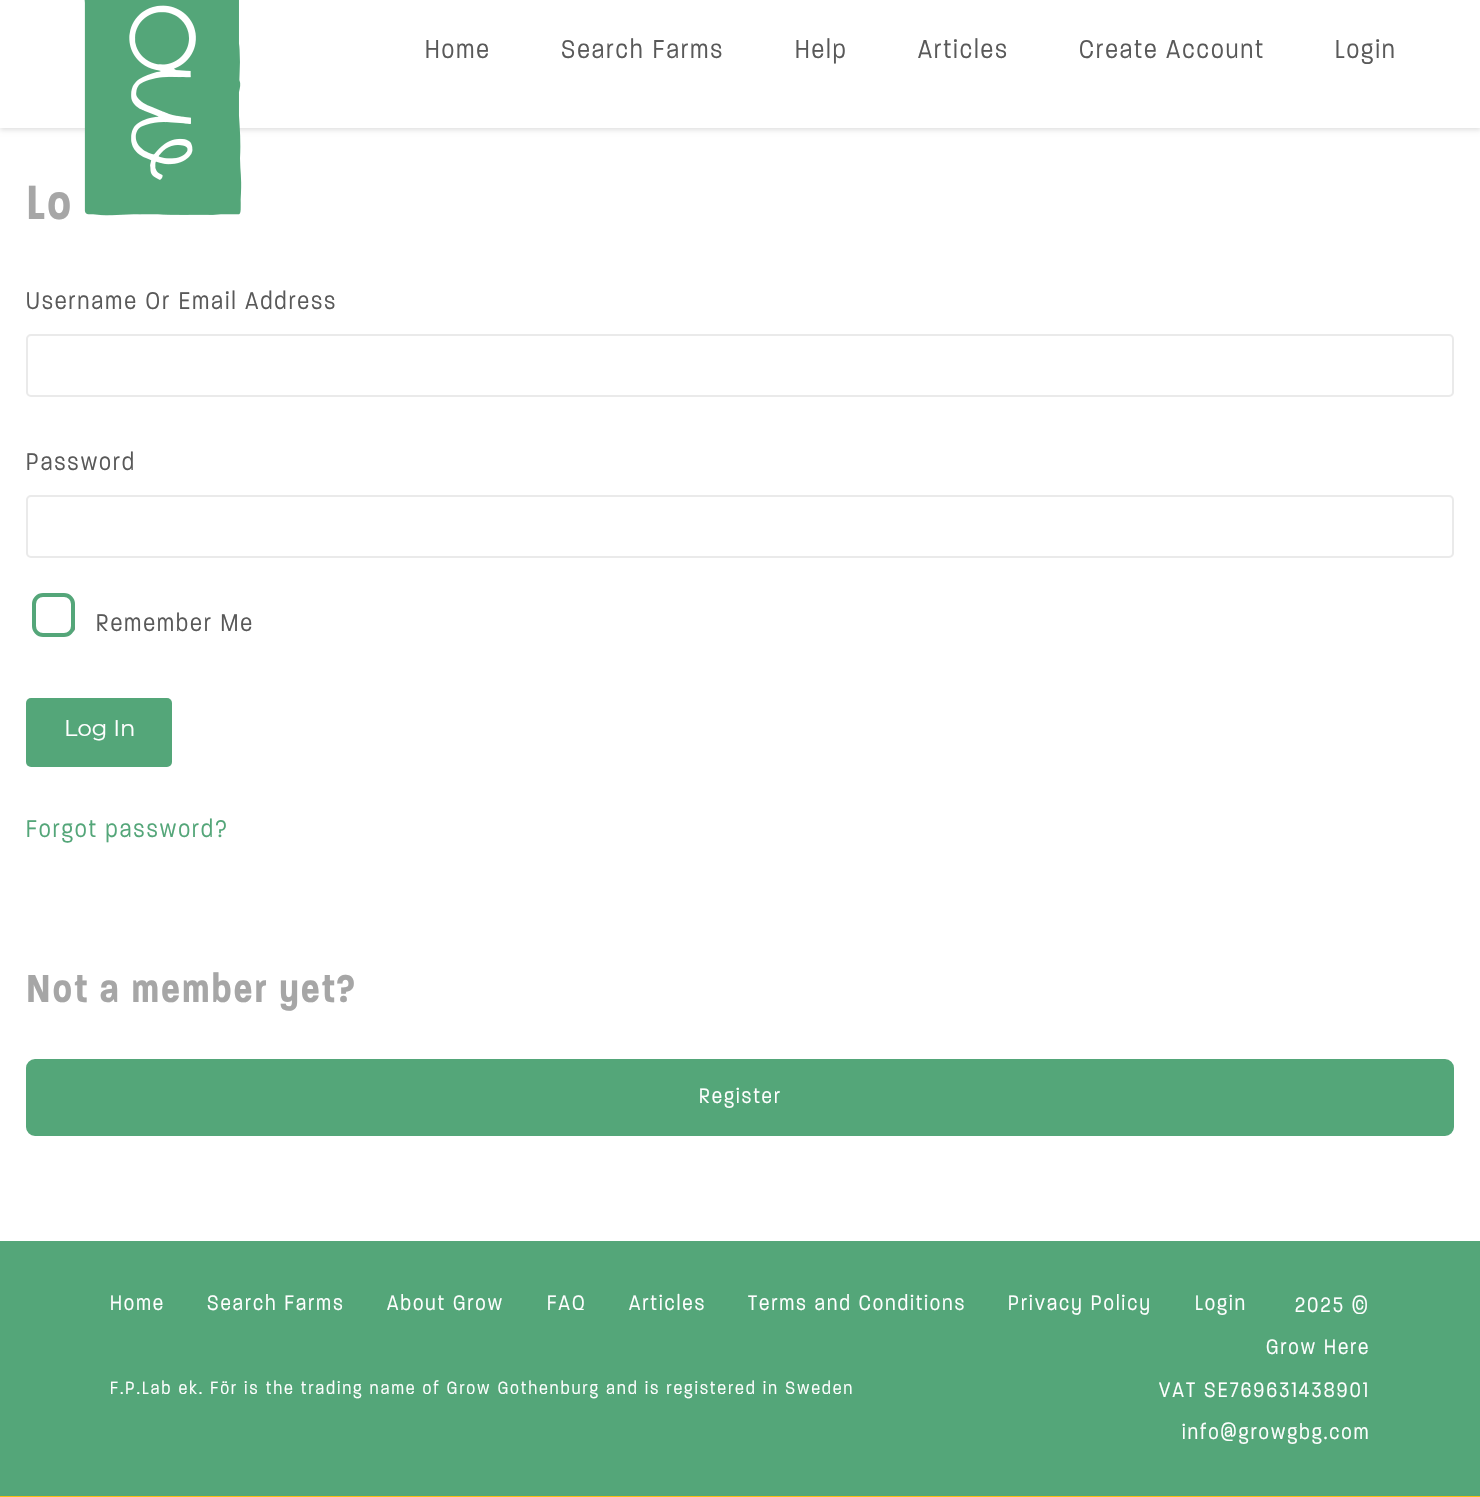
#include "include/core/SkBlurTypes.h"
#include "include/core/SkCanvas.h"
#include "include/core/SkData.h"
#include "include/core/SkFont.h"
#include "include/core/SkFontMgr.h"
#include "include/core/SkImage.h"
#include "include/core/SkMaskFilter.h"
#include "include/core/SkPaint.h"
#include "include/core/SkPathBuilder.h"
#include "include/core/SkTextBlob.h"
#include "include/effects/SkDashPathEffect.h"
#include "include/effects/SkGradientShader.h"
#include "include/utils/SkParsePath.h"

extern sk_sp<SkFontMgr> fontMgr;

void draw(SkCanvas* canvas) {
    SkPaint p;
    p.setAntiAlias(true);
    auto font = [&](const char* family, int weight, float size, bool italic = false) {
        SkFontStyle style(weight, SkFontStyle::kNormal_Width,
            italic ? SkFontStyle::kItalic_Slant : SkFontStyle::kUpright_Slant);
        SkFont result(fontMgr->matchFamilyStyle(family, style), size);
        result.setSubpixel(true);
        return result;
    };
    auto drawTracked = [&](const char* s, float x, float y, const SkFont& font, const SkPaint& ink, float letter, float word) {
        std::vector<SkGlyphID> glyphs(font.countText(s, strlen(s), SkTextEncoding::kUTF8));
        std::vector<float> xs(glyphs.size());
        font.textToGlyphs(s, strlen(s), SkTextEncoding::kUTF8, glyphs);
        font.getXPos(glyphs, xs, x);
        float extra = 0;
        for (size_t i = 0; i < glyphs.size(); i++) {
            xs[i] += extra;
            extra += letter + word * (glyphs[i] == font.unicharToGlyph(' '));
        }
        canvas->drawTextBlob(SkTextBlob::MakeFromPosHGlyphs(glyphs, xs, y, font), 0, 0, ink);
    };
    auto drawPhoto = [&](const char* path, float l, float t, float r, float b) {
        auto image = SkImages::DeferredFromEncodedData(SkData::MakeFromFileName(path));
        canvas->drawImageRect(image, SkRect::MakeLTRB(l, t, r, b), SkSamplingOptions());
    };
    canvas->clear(0xFFFABE14);
    p.setColor(0xFFFFFFFF);
    canvas->drawRect(SkRect::MakeLTRB(0, 0, 1480, 1241), p);
    canvas->save();
    canvas->clipPath(SkPathBuilder(SkPathFillType::kEvenOdd).moveTo(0, 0).lineTo(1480, 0).lineTo(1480, 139).lineTo(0, 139).close().moveTo(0, -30).lineTo(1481, -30).lineTo(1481, 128).lineTo(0, 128).close().detach(), true);
    p.setColor(0x1F000000);
    p.setMaskFilter(SkMaskFilter::MakeBlur(kNormal_SkBlurStyle, 2.5f));
    canvas->drawRect(SkRect::MakeLTRB(0, -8, 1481, 130), p);
    p.setMaskFilter(nullptr);
    canvas->restore();
    drawPhoto("media/1.png", 84, 0, 242, 216);
    auto font1 = font("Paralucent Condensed", 300, 28);
    p.setColor(0xFF595959);
    {
        const struct { const char* s; float x, y; } items[] = {
            {"Home", 425, 58},
            {"Search Farms", 561, 58},
            {"Help", 795, 58},
            {"Articles", 918, 58},
            {"Create Account", 1079, 58},
            {"Login", 1335, 58},
        };
        for (auto [s, x, y] : items) {
            drawTracked(s, x, y, font1, p, 2.27f, 0);
        }
    }
    auto font2 = font("Paralucent Condensed", 600, 52);
    p.setColor(0xFFA6A6A6);
    drawTracked("Lo", 26, 219, font2, p, 2.27f, 0);
    auto font3 = font("Paralucent Condensed", 300, 26.25f);
    p.setColor(0xFF595959);
    drawTracked("Username Or Email Address", 26, 309, font3, p, 2.27f, 0);
    p.setStyle(SkPaint::kStroke_Style);
    p.setStrokeWidth(2);
    p.setColor(0xFFEAEAEA);
    canvas->drawRoundRect(SkRect::MakeLTRB(27, 335, 1453, 396), 4, 4, p);
    p.setStyle(SkPaint::kFill_Style);
    p.setColor(0xFF595959);
    drawTracked("Password", 26, 470, font3, p, 2.27f, 0);
    p.setStyle(SkPaint::kStroke_Style);
    p.setColor(0xFFEAEAEA);
    canvas->drawRoundRect(SkRect::MakeLTRB(27, 496, 1453, 557), 4, 4, p);
    p.setColor(0xFF767676);
    canvas->drawRoundRect(SkRect::MakeLTRB(54, 610, 74, 631), 3, 3, p);
    p.setStyle(SkPaint::kFill_Style);
    p.setColor(0xFFFFFFFF);
    canvas->drawRoundRect(SkRect::MakeLTRB(34, 595, 73, 635), 9, 9, p);
    p.setStyle(SkPaint::kStroke_Style);
    p.setStrokeWidth(4);
    p.setColor(0xFF54A679);
    canvas->drawRoundRect(SkRect::MakeLTRB(34, 595, 73, 635), 9, 9, p);
    p.setStyle(SkPaint::kFill_Style);
    p.setColor(0xFF595959);
    drawTracked("Remember Me", 96, 631, font3, p, 2.27f, 0);
    p.setColor(0xFF54A679);
    canvas->drawRoundRect(SkRect::MakeLTRB(26, 698, 172, 767), 5, 5, p);
    auto font4 = font("Montserrat", 400, 22.75f);
    p.setColor(0xFFFFFFFF);
    canvas->drawString("Log In", 64, 736, font4, p);
    p.setColor(0xFF54A679);
    drawTracked("Forgot password?", 26, 837, font3, p, 2.27f, 0);
    auto font5 = font("Paralucent Condensed", 600, 42);
    p.setColor(0xFFA6A6A6);
    drawTracked("Not a member yet?", 26, 1002, font5, p, 2.27f, 0);
    p.setColor(0xFF54A679);
    canvas->drawRoundRect(SkRect::MakeLTRB(28, 1061, 1452, 1134), 7, 7, p);
    p.setStyle(SkPaint::kStroke_Style);
    canvas->drawRoundRect(SkRect::MakeLTRB(28, 1061, 1452, 1134), 7, 7, p);
    auto font6 = font("Paralucent Condensed", 300, 22.75f);
    p.setStyle(SkPaint::kFill_Style);
    p.setColor(0xFFFFFFFF);
    drawTracked("Register", 699, 1103, font6, p, 2.27f, 0);
    p.setColor(0xFF54A679);
    canvas->drawRect(SkRect::MakeLTRB(0, 1241, 1480, 1496), p);
    p.setColor(0xFFFFFFFF);
    {
        const struct { const char* s; float x, y; } items[] = {
            {"Home", 110, 1310},
            {"Search Farms", 207, 1310},
            {"About Grow", 387, 1310},
            {"FAQ", 547, 1310},
            {"Articles", 629, 1310},
            {"Terms and Conditions", 748, 1310},
            {"Privacy Policy", 1008, 1310},
            {"Login", 1195, 1310},
            {"2025 ©", 1295, 1312},
            {"Grow Here", 1266, 1354},
        };
        for (auto [s, x, y] : items) {
            drawTracked(s, x, y, font6, p, 2.27f, 0);
        }
    }
    auto font7 = font("Paralucent Condensed", 300, 19.25f);
    drawTracked("F.P.Lab ek. För is the trading name of Grow Gothenburg and is registered in Sweden", 110, 1394, font7, p, 2.27f, 0);
    drawTracked("VAT SE769631438901", 1159, 1397, font6, p, 2.27f, 0);
    drawTracked("info@growgbg.com", 1182, 1439, font6, p, 2.27f, 0);
}
